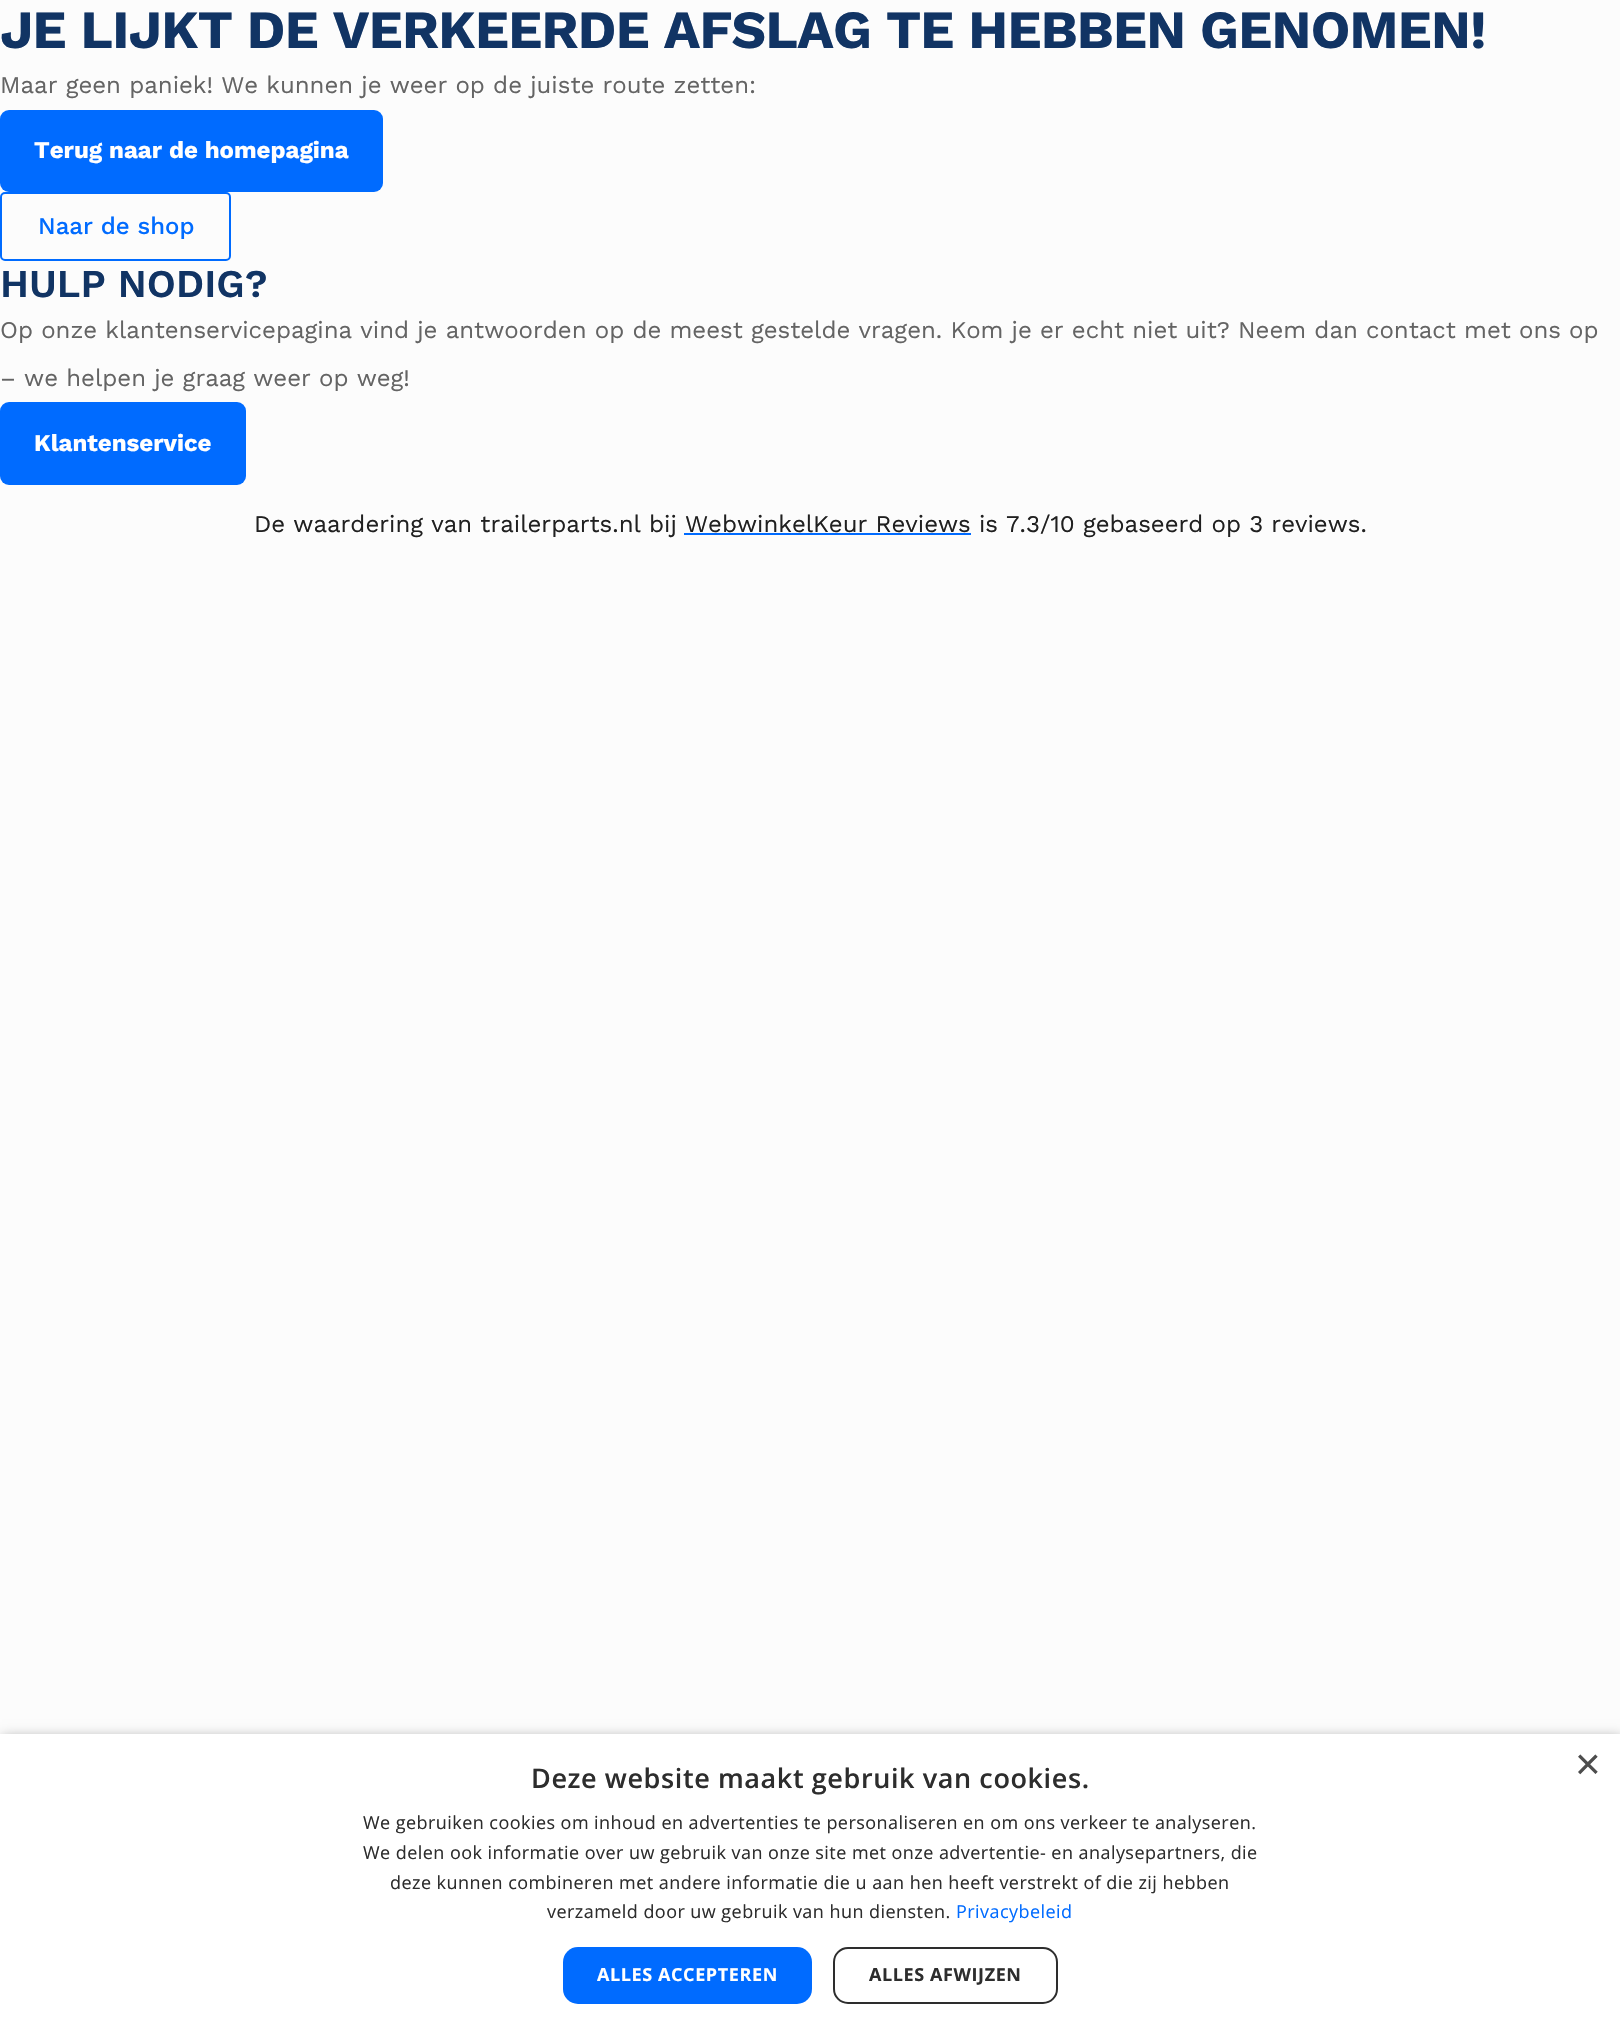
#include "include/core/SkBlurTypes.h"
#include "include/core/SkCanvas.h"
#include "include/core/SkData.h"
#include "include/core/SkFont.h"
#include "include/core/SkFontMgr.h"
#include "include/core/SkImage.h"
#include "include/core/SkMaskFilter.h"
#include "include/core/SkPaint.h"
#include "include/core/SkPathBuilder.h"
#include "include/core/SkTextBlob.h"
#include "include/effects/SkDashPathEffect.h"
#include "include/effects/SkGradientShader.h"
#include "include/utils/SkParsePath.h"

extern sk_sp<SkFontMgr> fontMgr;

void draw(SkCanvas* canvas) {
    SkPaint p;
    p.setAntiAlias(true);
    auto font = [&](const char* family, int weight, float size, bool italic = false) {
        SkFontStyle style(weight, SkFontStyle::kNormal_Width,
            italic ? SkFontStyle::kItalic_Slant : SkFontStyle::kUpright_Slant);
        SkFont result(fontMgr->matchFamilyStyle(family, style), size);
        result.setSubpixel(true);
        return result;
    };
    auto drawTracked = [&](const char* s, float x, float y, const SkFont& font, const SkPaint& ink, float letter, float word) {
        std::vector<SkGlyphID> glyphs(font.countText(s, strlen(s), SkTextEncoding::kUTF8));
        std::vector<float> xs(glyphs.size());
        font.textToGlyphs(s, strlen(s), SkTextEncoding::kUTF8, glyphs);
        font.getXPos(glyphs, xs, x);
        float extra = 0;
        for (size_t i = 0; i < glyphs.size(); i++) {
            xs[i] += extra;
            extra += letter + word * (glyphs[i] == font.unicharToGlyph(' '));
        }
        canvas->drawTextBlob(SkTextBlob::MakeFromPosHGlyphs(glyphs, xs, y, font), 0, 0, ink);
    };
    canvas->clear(0xFFFCFCFC);
    auto font1 = font("Work Sans", 700, 53.8f);
    p.setColor(0xFF113464);
    drawTracked("JE LIJKT DE VERKEERDE AFSLAG TE HEBBEN GENOMEN!", 0, 48, font1, p, -0.7f, 0);
    auto font2 = font("Work Sans", 400, 24);
    p.setColor(0xFF646464);
    canvas->drawString("Maar geen paniek! We kunnen je weer op de juiste route zetten:", 0, 93, font2, p);
    p.setColor(0xFF006BFF);
    canvas->drawRoundRect(SkRect::MakeLTRB(0, 110, 383, 192), 9, 9, p);
    auto font3 = font("Work Sans", 700, 24);
    p.setColor(0xFFFFFFFF);
    canvas->drawString("Terug naar de homepagina", 34, 158, font3, p);
    p.setStyle(SkPaint::kStroke_Style);
    p.setStrokeWidth(2);
    p.setColor(0xFF006BFF);
    canvas->drawRoundRect(SkRect::MakeLTRB(1, 193, 230, 260), 4, 4, p);
    auto font4 = font("Work Sans", 500, 24);
    p.setStyle(SkPaint::kFill_Style);
    canvas->drawString("Naar de shop", 38, 234, font4, p);
    auto font5 = font("Work Sans", 600, 39.25f);
    p.setColor(0xFF113464);
    canvas->drawString("HULP NODIG?", 0, 297, font5, p);
    p.setColor(0xFF646464);
    canvas->drawString("Op onze klantenservicepagina vind je antwoorden op de meest gestelde vragen. Kom je er echt niet uit? Neem dan contact met ons op", 0, 338, font2, p);
    canvas->drawString("– we helpen je graag weer op weg!", 0, 386, font2, p);
    p.setColor(0xFF006BFF);
    canvas->drawRoundRect(SkRect::MakeLTRB(0, 402, 246, 485), 9, 9, p);
    p.setColor(0xFFFFFFFF);
    canvas->drawString("Klantenservice", 34, 451, font3, p);
    p.setColor(0xFF202020);
    canvas->drawString("De waardering van trailerparts.nl bij WebwinkelKeur Reviews is 7.3/10 gebaseerd op 3 reviews.", 254, 532, font2, p);
    p.setColor(0xFF006BFF);
    canvas->drawRect(SkRect::MakeLTRB(684, 533, 971, 535), p);
    p.setColor(0x59000000);
    p.setMaskFilter(SkMaskFilter::MakeBlur(kNormal_SkBlurStyle, 6));
    canvas->drawRect(SkRect::MakeLTRB(2, 1737, 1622, 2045), p);
    p.setMaskFilter(nullptr);
    p.setColor(0xFFFFFFFF);
    canvas->drawRect(SkRect::MakeLTRB(0, 1734, 1620, 2041), p);
    auto font6 = font("Liberation Sans", 400, 44);
    p.setColor(0xFF4D4D4D);
    canvas->drawString("×", 1575, 1779, font6, p);
    auto font7 = font("Open Sans", 600, 27);
    p.setColor(0xFF2D2D2D);
    drawTracked("Deze website maakt gebruik van cookies.", 531, 1788, font7, p, 0.6f, 0);
    auto font8 = font("Open Sans", 400, 18);
    {
        const struct { const char* s; float x, y; } items[] = {
            {"We gebruiken cookies om inhoud en advertenties te personaliseren en om ons verkeer te analyseren.", 363, 1829},
            {"We delen ook informatie over uw gebruik van onze site met onze advertentie- en analysepartners, die", 363, 1859},
            {"deze kunnen combineren met andere informatie die u aan hen heeft verstrekt of die zij hebben", 390, 1889},
            {"verzameld door uw gebruik van hun diensten.", 547, 1918},
        };
        for (auto [s, x, y] : items) {
            drawTracked(s, x, y, font8, p, 0.45f, 0);
        }
    }
    p.setColor(0xFF006BFF);
    drawTracked("Privacybeleid", 956, 1918, font8, p, 0.45f, 0);
    canvas->drawRoundRect(SkRect::MakeLTRB(563, 1947, 812, 2004), 15, 15, p);
    auto font9 = font("Open Sans", 700, 18);
    p.setColor(0xFFFFFFFF);
    drawTracked("ALLES ACCEPTEREN", 597, 1981, font9, p, 0.6f, 0);
    p.setStyle(SkPaint::kStroke_Style);
    p.setColor(0xFF2D2D2D);
    canvas->drawRoundRect(SkRect::MakeLTRB(834, 1948, 1057, 2003), 14, 14, p);
    p.setStyle(SkPaint::kFill_Style);
    drawTracked("ALLES AFWIJZEN", 869, 1981, font9, p, 0.6f, 0);
}
